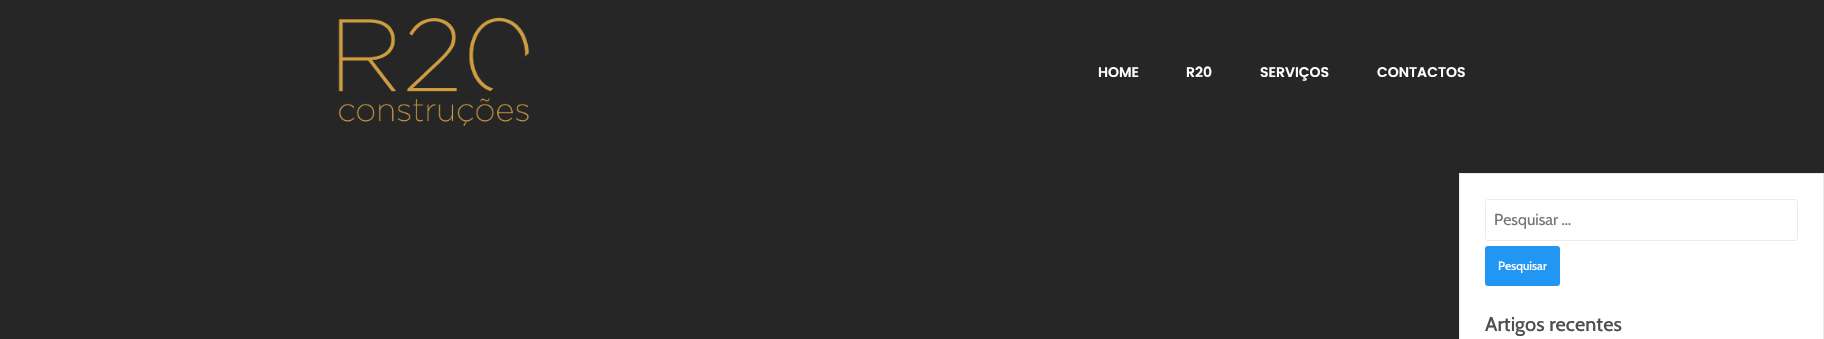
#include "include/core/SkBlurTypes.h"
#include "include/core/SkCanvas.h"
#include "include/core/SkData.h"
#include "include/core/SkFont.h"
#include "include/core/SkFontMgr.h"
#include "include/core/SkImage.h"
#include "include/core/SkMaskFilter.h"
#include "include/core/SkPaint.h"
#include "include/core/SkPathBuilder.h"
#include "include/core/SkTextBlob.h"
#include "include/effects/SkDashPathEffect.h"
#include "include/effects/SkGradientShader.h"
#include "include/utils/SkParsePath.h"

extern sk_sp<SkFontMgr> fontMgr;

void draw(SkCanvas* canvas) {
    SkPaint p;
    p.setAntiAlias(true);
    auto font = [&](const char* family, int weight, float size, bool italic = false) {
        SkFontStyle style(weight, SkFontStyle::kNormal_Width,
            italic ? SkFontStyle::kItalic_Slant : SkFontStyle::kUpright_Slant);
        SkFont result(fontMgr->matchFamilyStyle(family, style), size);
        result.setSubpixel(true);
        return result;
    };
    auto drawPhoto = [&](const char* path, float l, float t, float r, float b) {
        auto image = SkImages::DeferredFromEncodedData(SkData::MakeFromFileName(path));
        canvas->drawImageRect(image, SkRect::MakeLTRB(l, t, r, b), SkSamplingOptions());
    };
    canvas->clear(0xFF262626);
    drawPhoto("media/1.png", 338, 17, 530, 126);
    auto font1 = font("Poppins", 600, 14);
    p.setColor(0xFFFFFFFF);
    {
        const struct { const char* s; float x, y; } items[] = {
            {"HOME", 1098, 77},
            {"R20", 1186, 77},
            {"SERVIÇOS", 1260, 77},
            {"CONTACTOS", 1377, 77},
        };
        for (auto [s, x, y] : items) {
            canvas->drawString(s, x, y, font1, p);
        }
    }
    canvas->drawRect(SkRect::MakeLTRB(1459.5f, 173.5f, 1823.5f, 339.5f), p);
    p.setStyle(SkPaint::kStroke_Style);
    p.setStrokeWidth(1);
    p.setColor(0xFFEAEAEA);
    canvas->drawRect(SkRect::MakeLTRB(1459.5f, 173.5f, 1823.5f, 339.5f), p);
    canvas->drawRoundRect(SkRect::MakeLTRB(1485.5f, 199.5f, 1797.5f, 240.5f), 2.5f, 2.5f, p);
    auto font2 = font("Cabin", 400, 16);
    p.setStyle(SkPaint::kFill_Style);
    p.setColor(0xFF757575);
    canvas->drawString("Pesquisar …", 1494, 225, font2, p);
    p.setColor(0xFF2196F3);
    canvas->drawRoundRect(SkRect::MakeLTRB(1485, 246, 1560, 286), 3, 3, p);
    auto font3 = font("Cabin", 500, 12);
    p.setColor(0xFFFFFFFF);
    canvas->drawString("Pesquisar", 1498, 270, font3, p);
    auto font4 = font("Cabin", 500, 20);
    p.setColor(0xFF4D4D4D);
    canvas->drawString("Artigos recentes", 1485, 331, font4, p);
}
